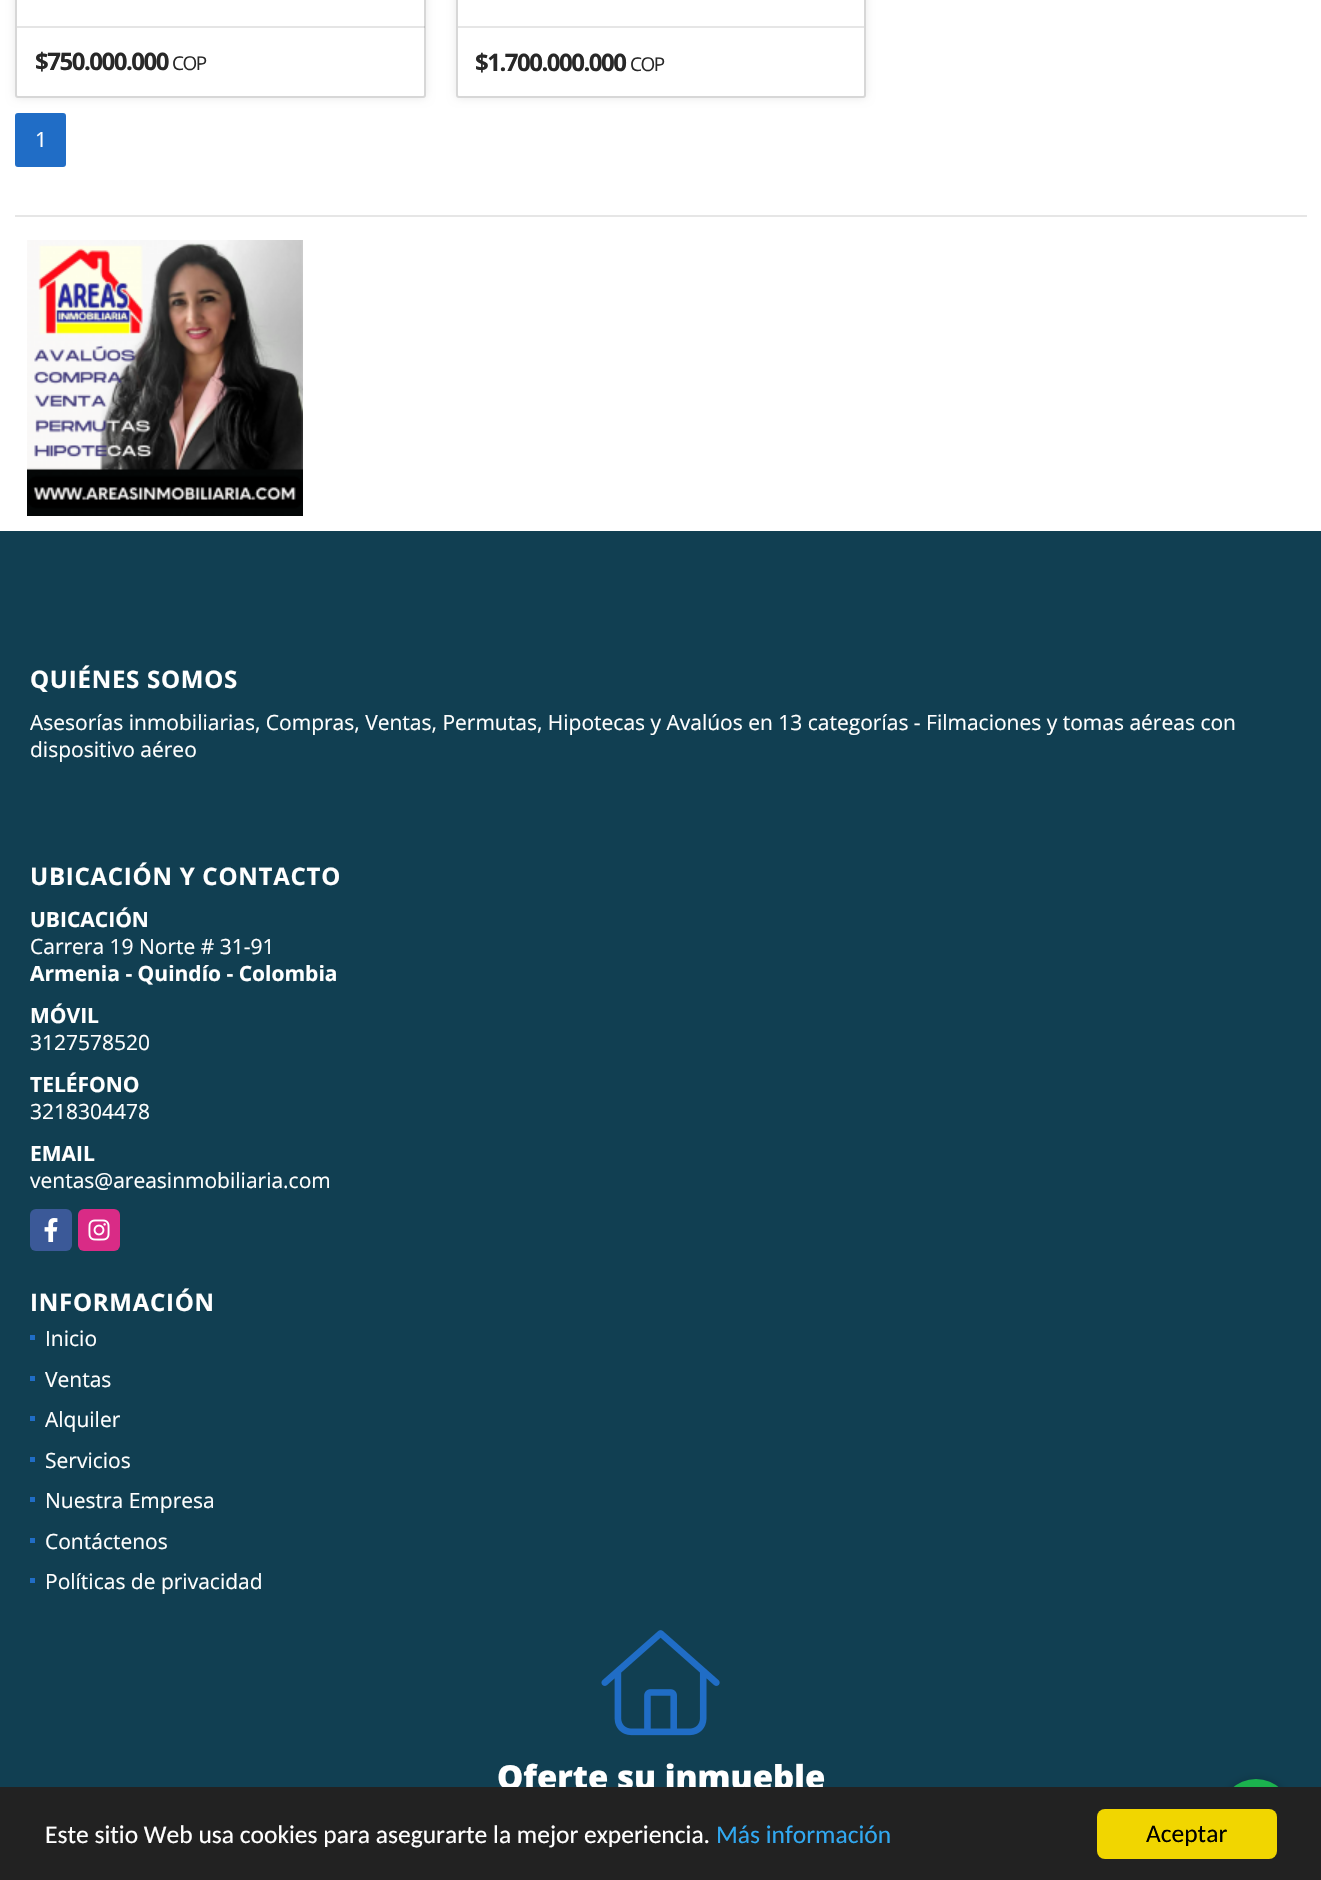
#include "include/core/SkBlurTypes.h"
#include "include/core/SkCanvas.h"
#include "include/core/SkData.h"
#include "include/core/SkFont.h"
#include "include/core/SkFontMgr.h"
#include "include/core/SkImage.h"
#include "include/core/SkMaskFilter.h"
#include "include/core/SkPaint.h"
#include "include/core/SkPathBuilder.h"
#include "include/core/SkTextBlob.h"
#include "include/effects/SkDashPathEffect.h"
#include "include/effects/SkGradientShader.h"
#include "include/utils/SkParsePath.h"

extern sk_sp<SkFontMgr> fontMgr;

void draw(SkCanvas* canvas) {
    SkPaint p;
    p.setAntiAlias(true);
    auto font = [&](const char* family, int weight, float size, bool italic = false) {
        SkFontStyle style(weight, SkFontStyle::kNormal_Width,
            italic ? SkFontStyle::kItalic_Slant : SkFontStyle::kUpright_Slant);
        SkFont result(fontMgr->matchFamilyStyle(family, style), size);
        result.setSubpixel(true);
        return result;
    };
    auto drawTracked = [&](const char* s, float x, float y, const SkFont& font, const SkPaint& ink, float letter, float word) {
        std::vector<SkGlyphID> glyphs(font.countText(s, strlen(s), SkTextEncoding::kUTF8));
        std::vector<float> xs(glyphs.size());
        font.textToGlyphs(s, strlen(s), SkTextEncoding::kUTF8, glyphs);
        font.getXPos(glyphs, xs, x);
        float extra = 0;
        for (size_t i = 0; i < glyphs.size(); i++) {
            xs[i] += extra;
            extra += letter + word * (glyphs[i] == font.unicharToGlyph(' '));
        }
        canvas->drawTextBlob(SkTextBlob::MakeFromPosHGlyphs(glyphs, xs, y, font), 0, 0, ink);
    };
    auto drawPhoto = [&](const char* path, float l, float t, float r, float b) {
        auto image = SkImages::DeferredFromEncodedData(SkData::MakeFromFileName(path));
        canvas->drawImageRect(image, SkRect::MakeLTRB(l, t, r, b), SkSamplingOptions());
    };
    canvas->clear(0xFFFFFFFF);
    p.setColor(0x17000000);
    p.setMaskFilter(SkMaskFilter::MakeBlur(kNormal_SkBlurStyle, 4.5f));
    canvas->drawRoundRect(SkRect::MakeLTRB(15, -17, 426, 98), 3, 3, p);
    p.setMaskFilter(nullptr);
    p.setColor(0xFFFFFFFF);
    canvas->drawRoundRect(SkRect::MakeLTRB(16, -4, 425, 97), 2, 2, p);
    p.setStyle(SkPaint::kStroke_Style);
    p.setStrokeWidth(2);
    p.setColor(0xFFD7D7D7);
    canvas->drawRoundRect(SkRect::MakeLTRB(16, -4, 425, 97), 2, 2, p);
    p.setStyle(SkPaint::kFill_Style);
    p.setColor(0x1A000000);
    canvas->drawRect(SkRect::MakeLTRB(17, 26, 425, 28), p);
    auto font1 = font("Open Sans", 700, 24);
    p.setColor(0xFF282828);
    drawTracked("$750.000.000", 35, 70, font1, p, -1.5f, 0);
    auto font2 = font("Open Sans", 400, 19);
    drawTracked("COP", 172, 70, font2, p, -1.5f, 0);
    p.setColor(0x17000000);
    p.setMaskFilter(SkMaskFilter::MakeBlur(kNormal_SkBlurStyle, 4.5f));
    canvas->drawRoundRect(SkRect::MakeLTRB(456, -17, 866, 98), 3, 3, p);
    p.setMaskFilter(nullptr);
    p.setColor(0xFFFFFFFF);
    canvas->drawRoundRect(SkRect::MakeLTRB(457, -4, 865, 97), 2, 2, p);
    p.setStyle(SkPaint::kStroke_Style);
    p.setColor(0xFFD7D7D7);
    canvas->drawRoundRect(SkRect::MakeLTRB(457, -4, 865, 97), 2, 2, p);
    p.setStyle(SkPaint::kFill_Style);
    p.setColor(0xFFE6E6E6);
    canvas->drawRect(SkRect::MakeLTRB(458, 26, 864, 28), p);
    p.setColor(0xFF282828);
    drawTracked("$1.700.000.000", 475, 71, font1, p, -1.5f, 0);
    drawTracked("COP", 630, 71, font2, p, -1.5f, 0);
    p.setColor(0xFF206DC6);
    canvas->drawRoundRect(SkRect::MakeLTRB(16, 114, 65, 166), 2, 2, p);
    p.setStyle(SkPaint::kStroke_Style);
    canvas->drawRoundRect(SkRect::MakeLTRB(16, 114, 65, 166), 2, 2, p);
    auto font3 = font("Open Sans", 400, 21);
    p.setStyle(SkPaint::kFill_Style);
    p.setColor(0xFFFFFFFF);
    canvas->drawString("1", 35, 147, font3, p);
    p.setColor(0xFFE6E6E6);
    canvas->drawRect(SkRect::MakeLTRB(15, 215, 1307, 217), p);
    drawPhoto("media/1.png", 27, 240, 303, 516);
    p.setColor(0xFF113F52);
    canvas->drawRect(SkRect::MakeLTRB(0, 531, 1321, 1787), p);
    p.setColor(0xFFFFFFFF);
    drawTracked("QUIÉNES SOMOS", 30, 688, font1, p, 0.75f, 0);
    canvas->drawString("Asesorías inmobiliarias, Compras, Ventas, Permutas, Hipotecas y Avalúos en 13 categorías - Filmaciones y tomas aéreas con", 30, 730, font3, p);
    canvas->drawString("dispositivo aéreo", 30, 757, font3, p);
    drawTracked("UBICACIÓN Y CONTACTO", 30, 885, font1, p, 0.75f, 0);
    auto font4 = font("Open Sans", 700, 21);
    canvas->drawString("UBICACIÓN", 30, 927, font4, p);
    canvas->drawString("Carrera 19 Norte # 31-91", 30, 954, font3, p);
    canvas->drawString("Armenia - Quindío - Colombia", 30, 981, font4, p);
    canvas->drawString("MÓVIL", 30, 1023, font4, p);
    canvas->drawString("3127578520", 30, 1050, font3, p);
    canvas->drawString("TELÉFONO", 30, 1092, font4, p);
    canvas->drawString("3218304478", 30, 1119, font3, p);
    canvas->drawString("EMAIL", 30, 1161, font4, p);
    canvas->drawString("ventas@areasinmobiliaria.com", 30, 1188, font3, p);
    p.setColor(0xFF3B5998);
    canvas->drawRoundRect(SkRect::MakeLTRB(30, 1209, 72, 1251), 6, 6, p);
    drawPhoto("media/2.png", 44, 1218, 58, 1242);
    p.setColor(0xFFD92B86);
    canvas->drawRoundRect(SkRect::MakeLTRB(78, 1209, 120, 1251), 6, 6, p);
    drawPhoto("media/3.png", 88, 1219, 110, 1241);
    p.setColor(0xFFFFFFFF);
    drawTracked("INFORMACIÓN", 30, 1311, font1, p, 0.75f, 0);
    p.setColor(0xFF206DC6);
    canvas->drawRect(SkRect::MakeLTRB(30, 1335, 35, 1340), p);
    p.setColor(0xFFFFFFFF);
    canvas->drawString("Inicio", 45, 1346, font3, p);
    p.setColor(0xFF206DC6);
    canvas->drawRect(SkRect::MakeLTRB(30, 1376, 35, 1381), p);
    p.setColor(0xFFFFFFFF);
    canvas->drawString("Ventas", 45, 1387, font3, p);
    p.setColor(0xFF206DC6);
    canvas->drawRect(SkRect::MakeLTRB(30, 1416, 35, 1421), p);
    p.setColor(0xFFFFFFFF);
    canvas->drawString("Alquiler", 45, 1427, font3, p);
    p.setColor(0xFF206DC6);
    canvas->drawRect(SkRect::MakeLTRB(30, 1457, 35, 1462), p);
    p.setColor(0xFFFFFFFF);
    canvas->drawString("Servicios", 45, 1468, font3, p);
    p.setColor(0xFF206DC6);
    canvas->drawRect(SkRect::MakeLTRB(30, 1497, 35, 1502), p);
    p.setColor(0xFFFFFFFF);
    canvas->drawString("Nuestra Empresa", 45, 1508, font3, p);
    p.setColor(0xFF206DC6);
    canvas->drawRect(SkRect::MakeLTRB(30, 1538, 35, 1543), p);
    p.setColor(0xFFFFFFFF);
    canvas->drawString("Contáctenos", 45, 1549, font3, p);
    p.setColor(0xFF206DC6);
    canvas->drawRect(SkRect::MakeLTRB(30, 1578, 35, 1583), p);
    p.setColor(0xFFFFFFFF);
    canvas->drawString("Políticas de privacidad", 45, 1589, font3, p);
    drawPhoto("media/4.png", 601, 1630, 720, 1736);
    auto font5 = font("Open Sans", 800, 33);
    canvas->drawString("Oferte su inmueble", 497, 1789, font5, p);
    p.setColor(0x33000000);
    p.setMaskFilter(SkMaskFilter::MakeBlur(kNormal_SkBlurStyle, 4.5f));
    canvas->drawRoundRect(SkRect::MakeLTRB(1220, 1779, 1292, 1851), 36, 36, p);
    p.setMaskFilter(nullptr);
    p.setColor(0xFF1BB24E);
    canvas->drawCircle(1256, 1815, 36, p);
    p.setColor(0xFF222222);
    canvas->drawRect(SkRect::MakeLTRB(0, 1787, 1321, 1880), p);
    auto font6 = font("Carlito", 400, 25.5f);
    p.setColor(0xFFFFFFFF);
    canvas->drawString("Este sitio Web usa cookies para asegurarte la mejor experiencia.", 45, 1843, font6, p);
    p.setColor(0xFF31A8F0);
    canvas->drawString("Más información", 716, 1843, font6, p);
    p.setColor(0xFFF1D600);
    canvas->drawRoundRect(SkRect::MakeLTRB(1097, 1809, 1277, 1859), 8, 8, p);
    p.setColor(0xFF000000);
    canvas->drawString("Aceptar", 1146, 1842, font6, p);
}
